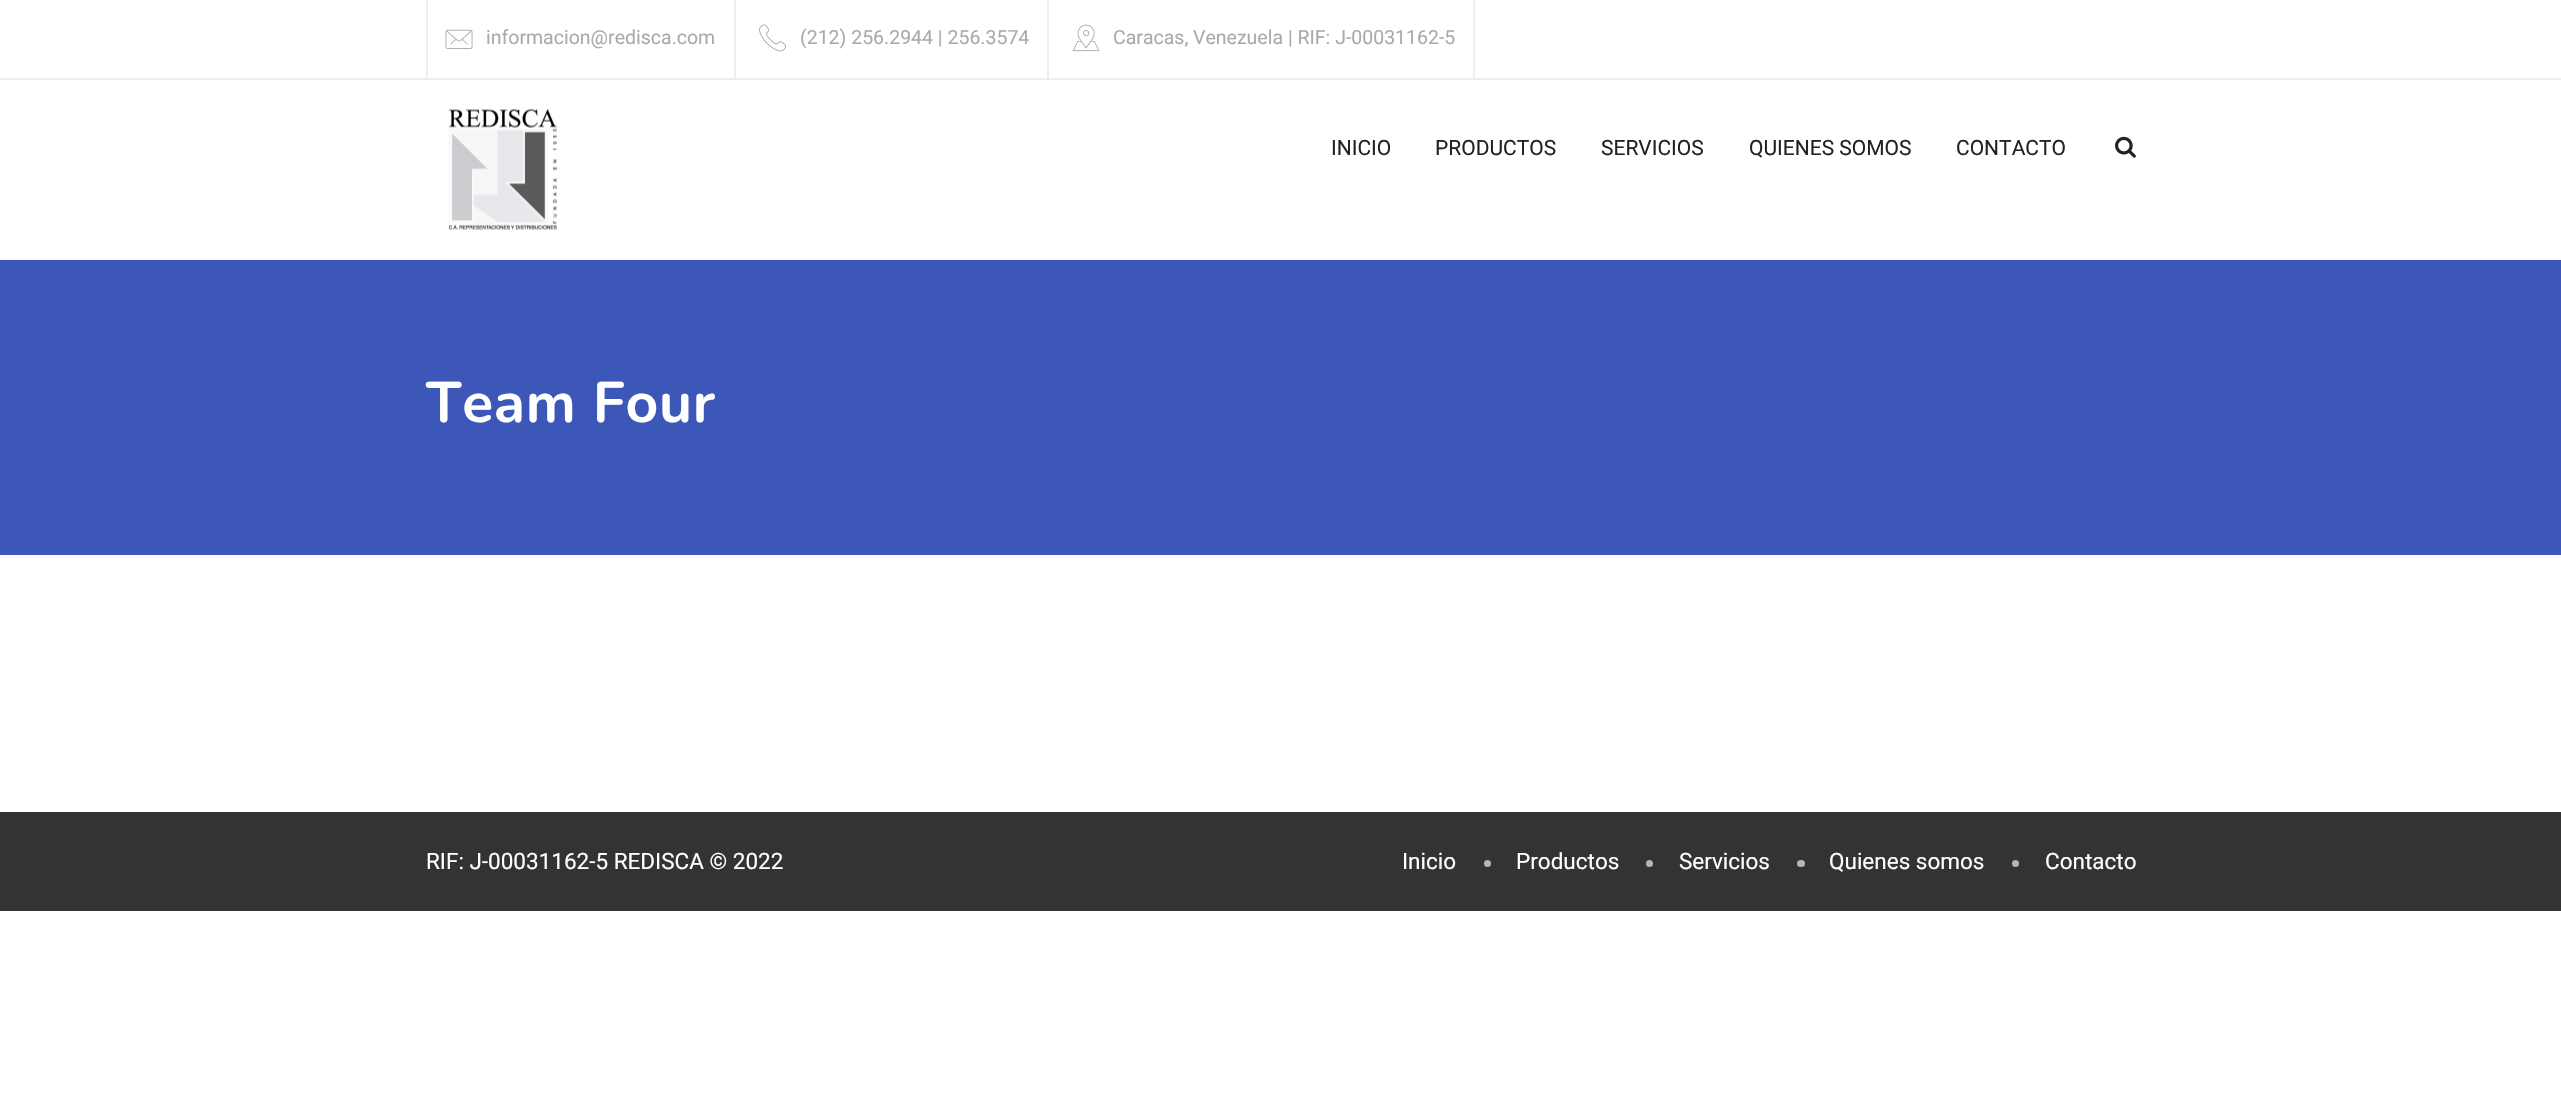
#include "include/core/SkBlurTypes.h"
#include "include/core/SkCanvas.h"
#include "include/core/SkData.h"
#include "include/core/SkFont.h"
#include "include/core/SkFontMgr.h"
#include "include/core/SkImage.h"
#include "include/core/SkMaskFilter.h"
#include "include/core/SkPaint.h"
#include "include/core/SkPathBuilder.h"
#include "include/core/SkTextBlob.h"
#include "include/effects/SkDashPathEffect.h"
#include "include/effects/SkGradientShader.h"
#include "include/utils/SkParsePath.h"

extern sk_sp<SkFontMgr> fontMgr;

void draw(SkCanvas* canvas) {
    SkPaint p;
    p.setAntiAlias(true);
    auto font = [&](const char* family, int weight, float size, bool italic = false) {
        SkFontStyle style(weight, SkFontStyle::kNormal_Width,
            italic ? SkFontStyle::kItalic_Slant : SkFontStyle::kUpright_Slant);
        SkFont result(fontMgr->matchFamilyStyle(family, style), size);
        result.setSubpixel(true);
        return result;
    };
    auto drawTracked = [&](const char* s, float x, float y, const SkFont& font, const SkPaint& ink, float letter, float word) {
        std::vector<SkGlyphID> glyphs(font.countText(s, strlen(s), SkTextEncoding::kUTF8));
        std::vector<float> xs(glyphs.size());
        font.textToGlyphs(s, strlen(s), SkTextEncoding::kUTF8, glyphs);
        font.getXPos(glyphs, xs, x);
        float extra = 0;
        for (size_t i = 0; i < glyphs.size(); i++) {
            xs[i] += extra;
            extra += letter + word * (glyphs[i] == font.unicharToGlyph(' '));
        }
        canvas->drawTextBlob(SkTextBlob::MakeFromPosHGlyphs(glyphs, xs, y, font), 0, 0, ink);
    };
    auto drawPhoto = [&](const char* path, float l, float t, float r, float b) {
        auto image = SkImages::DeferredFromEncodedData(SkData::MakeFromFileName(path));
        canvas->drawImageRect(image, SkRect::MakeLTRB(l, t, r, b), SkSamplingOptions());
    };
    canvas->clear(0xFFFFFFFF);
    {
        const struct { float l, t, r, b; SkColor color; } items[] = {
            {0, 78, 2561, 80, 0xFFEEEEEE},
            {734, 0, 736, 78, 0xFFEEEEEE},
            {426, 0, 428, 78, 0xFFEEEEEE},
        };
        for (auto [l, t, r, b, color] : items) {
            p.setColor(color);
            canvas->drawRect(SkRect::MakeLTRB(l, t, r, b), p);
        }
    }
    drawPhoto("media/1.png", 445, 29, 473, 49);
    auto font1 = font("Roboto", 400, 19.5f);
    p.setColor(0xFFAAAAAA);
    canvas->drawString("informacion@redisca.com", 486, 44, font1, p);
    p.setColor(0xFFEEEEEE);
    canvas->drawRect(SkRect::MakeLTRB(1047, 0, 1049, 78), p);
    drawPhoto("media/2.png", 759, 24, 786, 52);
    p.setColor(0xFFAAAAAA);
    canvas->drawString("(212) 256.2944 | 256.3574", 800, 44, font1, p);
    p.setColor(0xFFEEEEEE);
    canvas->drawRect(SkRect::MakeLTRB(1473, 0, 1475, 78), p);
    drawPhoto("media/3.png", 1072, 24, 1100, 52);
    p.setColor(0xFFAAAAAA);
    canvas->drawString("Caracas, Venezuela | RIF: J-00031162-5", 1113, 44, font1, p);
    drawPhoto("media/4.png", 448, 109, 557, 230);
    auto font2 = font("Roboto", 400, 21);
    p.setColor(0xFF222222);
    {
        const struct { const char* s; float x, y; } items[] = {
            {"INICIO", 1331, 155},
            {"PRODUCTOS", 1435, 155},
            {"SERVICIOS", 1601, 155},
            {"QUIENES SOMOS", 1749, 155},
            {"CONTACTO", 1956, 155},
        };
        for (auto [s, x, y] : items) {
            canvas->drawString(s, x, y, font2, p);
        }
    }
    drawPhoto("media/5.png", 2115, 136, 2136, 158);
    p.setColor(0xFF3D57B8);
    canvas->drawRect(SkRect::MakeLTRB(0, 260, 2561, 555), p);
    auto font3 = font("Nunito", 700, 57);
    p.setColor(0xFFFFFFFF);
    drawTracked("Team Four", 426, 422, font3, p, 0.75f, 0);
    p.setColor(0xFF333333);
    canvas->drawRect(SkRect::MakeLTRB(0, 812, 2561, 911), p);
    auto font4 = font("Roboto", 400, 22.5f);
    p.setColor(0xFFFFFFFF);
    canvas->drawString("RIF: J-00031162-5 REDISCA © 2022", 426, 869, font4, p);
    canvas->drawString("Inicio", 1402, 869, font4, p);
    p.setColor(0xFFB5B5B5);
    canvas->drawCircle(1487.5f, 863.5f, 3.5f, p);
    p.setColor(0xFFFFFFFF);
    canvas->drawString("Productos", 1516, 869, font4, p);
    p.setColor(0xFFB5B5B5);
    canvas->drawCircle(1649.5f, 863.5f, 3.5f, p);
    p.setColor(0xFFFFFFFF);
    canvas->drawString("Servicios", 1679, 869, font4, p);
    p.setColor(0xFFB5B5B5);
    canvas->drawRoundRect(SkRect::MakeLTRB(1797, 860, 1805, 867), 3.5f, 3.5f, p);
    p.setColor(0xFFFFFFFF);
    canvas->drawString("Quienes somos", 1829, 869, font4, p);
    p.setColor(0xFFB5B5B5);
    canvas->drawCircle(2015.5f, 863.5f, 3.5f, p);
    p.setColor(0xFFFFFFFF);
    canvas->drawString("Contacto", 2045, 869, font4, p);
}
